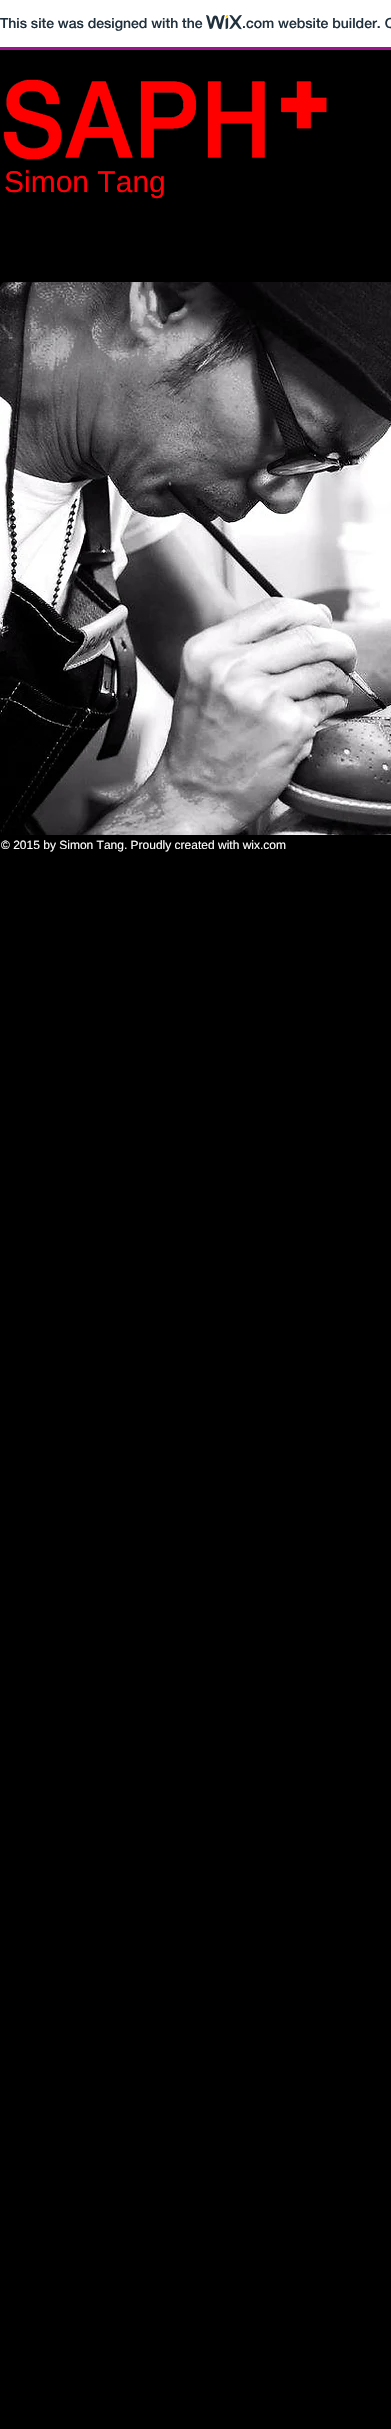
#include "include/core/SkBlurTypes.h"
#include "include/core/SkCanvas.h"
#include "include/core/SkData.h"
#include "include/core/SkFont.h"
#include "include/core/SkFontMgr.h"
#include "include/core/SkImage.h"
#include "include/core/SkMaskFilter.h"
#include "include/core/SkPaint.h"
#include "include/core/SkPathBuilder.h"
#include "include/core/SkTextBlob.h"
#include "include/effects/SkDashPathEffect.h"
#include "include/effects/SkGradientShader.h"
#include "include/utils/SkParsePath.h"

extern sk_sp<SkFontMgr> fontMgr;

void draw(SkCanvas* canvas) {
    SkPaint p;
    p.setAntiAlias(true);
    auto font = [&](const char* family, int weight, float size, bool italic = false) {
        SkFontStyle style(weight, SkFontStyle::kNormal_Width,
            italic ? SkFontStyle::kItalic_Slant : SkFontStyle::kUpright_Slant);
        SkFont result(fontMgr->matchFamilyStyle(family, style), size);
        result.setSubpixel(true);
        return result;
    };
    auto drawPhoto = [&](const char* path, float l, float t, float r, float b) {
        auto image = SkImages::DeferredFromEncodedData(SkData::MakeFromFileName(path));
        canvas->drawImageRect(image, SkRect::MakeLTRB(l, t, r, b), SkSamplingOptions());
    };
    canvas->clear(0xFFFFFFFF);
    p.setColor(0xFFA0138E);
    canvas->drawRect(SkRect::MakeLTRB(0, 47, 391, 50), p);
    auto font1 = font("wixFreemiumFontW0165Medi", 500, 14);
    p.setColor(0xFF20303C);
    canvas->drawString("This site was designed with the", 0, 28, font1, p);
    drawPhoto("media/1.png", 206, 15, 242, 30);
    canvas->drawString(".com website builder. C", 242, 28, font1, p);
    p.setColor(0xFF000000);
    canvas->drawRect(SkRect::MakeLTRB(0, 50, 391, 2429), p);
    drawPhoto("media/2.png", 3, 79, 327, 160);
    auto font2 = font("Liberation Sans", 400, 30);
    p.setColor(0xFFFF0008);
    canvas->drawString("Simon Tang", 4, 192, font2, p);
    drawPhoto("media/3.png", 0, 282, 391, 835);
    auto font3 = font("Liberation Sans", 400, 12);
    p.setColor(0xFFFFFFFF);
    canvas->drawString("© 2015 by Simon Tang. Proudly created with wix.com", 1, 849, font3, p);
}
